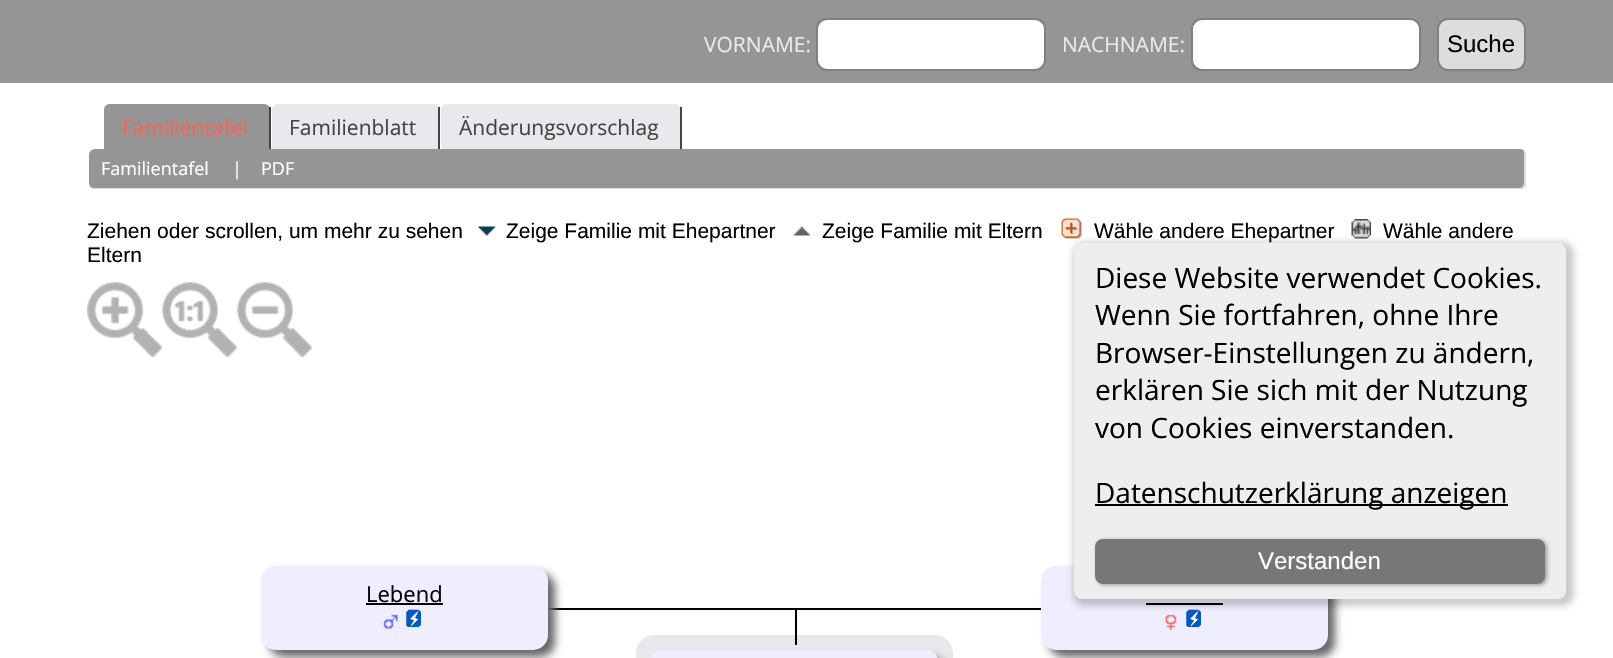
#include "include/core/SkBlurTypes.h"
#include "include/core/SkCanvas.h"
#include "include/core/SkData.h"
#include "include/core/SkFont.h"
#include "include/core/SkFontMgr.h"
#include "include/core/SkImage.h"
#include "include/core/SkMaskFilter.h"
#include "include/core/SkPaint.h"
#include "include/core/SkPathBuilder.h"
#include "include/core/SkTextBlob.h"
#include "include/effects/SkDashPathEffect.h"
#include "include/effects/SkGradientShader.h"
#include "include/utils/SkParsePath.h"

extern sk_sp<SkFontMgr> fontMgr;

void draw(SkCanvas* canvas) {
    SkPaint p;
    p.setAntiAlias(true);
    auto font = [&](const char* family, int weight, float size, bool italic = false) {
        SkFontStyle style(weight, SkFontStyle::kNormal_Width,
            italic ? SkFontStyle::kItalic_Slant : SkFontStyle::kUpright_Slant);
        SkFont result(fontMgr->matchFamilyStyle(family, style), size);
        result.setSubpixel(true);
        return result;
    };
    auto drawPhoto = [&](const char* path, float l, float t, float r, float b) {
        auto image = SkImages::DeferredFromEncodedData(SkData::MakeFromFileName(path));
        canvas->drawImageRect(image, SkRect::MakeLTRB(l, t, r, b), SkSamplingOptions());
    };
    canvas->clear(0xFFFFFFFF);
    p.setColor(0xFF959595);
    canvas->drawRect(SkRect::MakeLTRB(0, 0, 1613, 83), p);
    auto font1 = font("Open Sans", 400, 21);
    p.setColor(0xFFE9E9ED);
    canvas->drawString("VORNAME:", 704, 52, font1, p);
    p.setColor(0xFFFFFFFF);
    canvas->drawRoundRect(SkRect::MakeLTRB(817, 19, 1045, 70), 10, 10, p);
    p.setStyle(SkPaint::kStroke_Style);
    p.setStrokeWidth(2);
    p.setColor(0xFF808080);
    canvas->drawRoundRect(SkRect::MakeLTRB(817, 19, 1045, 70), 10, 10, p);
    p.setStyle(SkPaint::kFill_Style);
    p.setColor(0xFFE9E9ED);
    canvas->drawString("NACHNAME:", 1062, 52, font1, p);
    p.setColor(0xFFFFFFFF);
    canvas->drawRoundRect(SkRect::MakeLTRB(1192, 19, 1420, 70), 10, 10, p);
    p.setStyle(SkPaint::kStroke_Style);
    p.setColor(0xFF808080);
    canvas->drawRoundRect(SkRect::MakeLTRB(1192, 19, 1420, 70), 10, 10, p);
    p.setStyle(SkPaint::kFill_Style);
    p.setColor(0xFFDDDDDD);
    canvas->drawRoundRect(SkRect::MakeLTRB(1438, 19, 1525, 70), 10, 10, p);
    p.setStyle(SkPaint::kStroke_Style);
    p.setColor(0xFF808080);
    canvas->drawRoundRect(SkRect::MakeLTRB(1438, 19, 1525, 70), 10, 10, p);
    auto font2 = font("Liberation Sans", 400, 24);
    p.setStyle(SkPaint::kFill_Style);
    p.setColor(0xFF000000);
    canvas->drawString("Suche", 1447, 52, font2, p);
    p.setColor(0xFF959595);
    canvas->drawPath(SkPathBuilder().moveTo(110, 104).lineTo(264, 104).cubicTo(267.5f, 104, 270, 106.5f, 270, 110).lineTo(270, 149).lineTo(104, 149).lineTo(104, 110).cubicTo(104, 106.5f, 106.5f, 104, 110, 104).close().detach(), p);
    p.setColor(0xFF444444);
    canvas->drawRect(SkRect::MakeLTRB(269, 107, 271, 149), p);
    p.setColor(0xFFF66556);
    canvas->drawString("Familientafel", 122, 135, font1, p);
    p.setColor(0xFFE9E9ED);
    canvas->drawPath(SkPathBuilder().moveTo(278, 104).lineTo(434, 104).cubicTo(437.5f, 104, 440, 106.5f, 440, 110).lineTo(440, 149).lineTo(272, 149).lineTo(272, 110).cubicTo(272, 106.5f, 274.5f, 104, 278, 104).close().detach(), p);
    p.setColor(0xFF444444);
    canvas->drawRect(SkRect::MakeLTRB(438, 107, 440, 149), p);
    canvas->drawString("Familienblatt", 289, 135, font1, p);
    p.setColor(0xFFE9E9ED);
    canvas->drawPath(SkPathBuilder().moveTo(447, 104).lineTo(675, 104).cubicTo(678.5f, 104, 681, 106.5f, 681, 110).lineTo(681, 149).lineTo(441, 149).lineTo(441, 110).cubicTo(441, 106.5f, 443.5f, 104, 447, 104).close().detach(), p);
    p.setColor(0xFF444444);
    canvas->drawRect(SkRect::MakeLTRB(680, 107, 682, 149), p);
    canvas->drawString("Änderungsvorschlag", 459, 135, font1, p);
    p.setColor(0xFF959595);
    canvas->drawRoundRect(SkRect::MakeLTRB(89, 149, 1526, 189), 6, 6, p);
    p.setColor(0xFFDDDDDD);
    canvas->drawPath(SkPathBuilder(SkPathFillType::kEvenOdd).moveTo(94, 148).lineTo(1520, 148).cubicTo(1523, 148, 1526, 151, 1526, 154).lineTo(1526, 183).cubicTo(1526, 186, 1523, 189, 1520, 189).lineTo(94, 189).cubicTo(91, 189, 88, 186, 88, 183).lineTo(88, 154).cubicTo(88, 151, 91, 148, 94, 148).close().moveTo(94, 148).lineTo(1520, 148).cubicTo(1522, 148, 1524, 151, 1524, 154).lineTo(1524, 183).cubicTo(1524, 185, 1522, 188, 1520, 188).lineTo(94, 188).cubicTo(91, 188, 88, 185, 88, 183).lineTo(88, 154).cubicTo(88, 151, 91, 148, 94, 148).close().detach(), p);
    auto font3 = font("Open Sans", 400, 18);
    p.setColor(0xFFFFFFFF);
    {
        const struct { const char* s; float x, y; } items[] = {
            {"Familientafel", 101, 175},
            {"|", 232, 175},
            {"PDF", 261, 175},
        };
        for (auto [s, x, y] : items) {
            canvas->drawString(s, x, y, font3, p);
        }
    }
    auto font4 = font("Liberation Sans", 400, 21);
    p.setColor(0xFF000000);
    canvas->drawString("Ziehen oder scrollen, um mehr zu sehen", 87, 238, font4, p);
    drawPhoto("media/1.png", 478, 226, 496, 236);
    canvas->drawString("Zeige Familie mit Ehepartner", 506, 238, font4, p);
    drawPhoto("media/2.png", 793, 226, 810, 236);
    canvas->drawString("Zeige Familie mit Eltern", 822, 238, font4, p);
    drawPhoto("media/3.png", 1061, 218, 1082, 239);
    canvas->drawString("Wähle andere Ehepartner", 1094, 238, font4, p);
    drawPhoto("media/4.png", 1351, 219, 1371, 239);
    canvas->drawString("Wähle andere", 1383, 238, font4, p);
    canvas->drawString("Eltern", 87, 262, font4, p);
    drawPhoto("media/5.png", 87, 282, 162, 357);
    drawPhoto("media/6.png", 162, 282, 237, 357);
    drawPhoto("media/7.png", 237, 282, 312, 357);
    canvas->drawRect(SkRect::MakeLTRB(548, 608, 1043, 610), p);
    p.setColor(0xFF666666);
    p.setMaskFilter(SkMaskFilter::MakeBlur(kNormal_SkBlurStyle, 4));
    canvas->drawRoundRect(SkRect::MakeLTRB(1049, 573, 1335, 657), 15, 15, p);
    p.setMaskFilter(nullptr);
    p.setColor(0xFFEEEEFF);
    canvas->drawRoundRect(SkRect::MakeLTRB(1041, 566, 1328, 650), 15, 15, p);
    p.setColor(0xFF000000);
    canvas->drawRect(SkRect::MakeLTRB(1146, 603, 1223, 605), p);
    drawPhoto("media/10.png", 1165, 614, 1177, 630);
    drawPhoto("media/9.png", 1186, 609, 1201, 628);
    p.setColor(0x33000000);
    p.setMaskFilter(SkMaskFilter::MakeBlur(kNormal_SkBlurStyle, 3));
    canvas->drawRoundRect(SkRect::MakeLTRB(1073, 242, 1574, 606), 12, 12, p);
    p.setMaskFilter(nullptr);
    p.setColor(0xFFEEEEEE);
    canvas->drawRoundRect(SkRect::MakeLTRB(1074, 243, 1566, 599), 8, 8, p);
    auto font5 = font("Open Sans", 400, 28);
    p.setColor(0xFF000000);
    {
        const struct { const char* s; float x, y; } items[] = {
            {"Diese Website verwendet Cookies.", 1095, 288},
            {"Wenn Sie fortfahren, ohne Ihre", 1095, 325},
            {"Browser-Einstellungen zu ändern,", 1095, 363},
            {"erklären Sie sich mit der Nutzung", 1095, 400},
            {"von Cookies einverstanden.", 1095, 438},
        };
        for (auto [s, x, y] : items) {
            canvas->drawString(s, x, y, font5, p);
        }
    }
    canvas->drawRect(SkRect::MakeLTRB(1095, 504, 1508, 506), p);
    canvas->drawString("Datenschutzerklärung anzeigen", 1095, 503, font5, p);
    p.setColor(0xFF999999);
    p.setMaskFilter(SkMaskFilter::MakeBlur(kNormal_SkBlurStyle, 2));
    canvas->drawRoundRect(SkRect::MakeLTRB(1097, 540, 1547, 585), 8, 8, p);
    p.setMaskFilter(nullptr);
    p.setColor(0xFF777777);
    canvas->drawRoundRect(SkRect::MakeLTRB(1095, 539, 1545, 584), 8, 8, p);
    p.setColor(0xFFFFFFFF);
    canvas->drawString("Verstanden", 1258, 569, font2, p);
    p.setColor(0xFF666666);
    p.setMaskFilter(SkMaskFilter::MakeBlur(kNormal_SkBlurStyle, 4));
    canvas->drawRoundRect(SkRect::MakeLTRB(269, 573, 555, 657), 15, 15, p);
    p.setMaskFilter(nullptr);
    p.setColor(0xFFEEEEFF);
    canvas->drawRoundRect(SkRect::MakeLTRB(261, 566, 548, 650), 15, 15, p);
    auto font6 = font("Open Sans", 400, 22);
    p.setColor(0xFF000000);
    canvas->drawString("Lebend", 366, 602, font6, p);
    canvas->drawRect(SkRect::MakeLTRB(366, 603, 443, 605), p);
    drawPhoto("media/8.png", 383, 614, 398, 629);
    drawPhoto("media/9.png", 406, 609, 421, 628);
    p.setColor(0xFFE9E9ED);
    canvas->drawRoundRect(SkRect::MakeLTRB(636, 635, 953, 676), 18, 18, p);
    p.setColor(0xFF000000);
    canvas->drawRect(SkRect::MakeLTRB(795, 608, 797, 645), p);
    p.setColor(0xFF666666);
    p.setMaskFilter(SkMaskFilter::MakeBlur(kNormal_SkBlurStyle, 4));
    canvas->drawRoundRect(SkRect::MakeLTRB(659, 657, 945, 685), 15, 15, p);
    p.setMaskFilter(nullptr);
    p.setColor(0xFFEEEEFF);
    canvas->drawRoundRect(SkRect::MakeLTRB(651, 650, 938, 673), 15, 15, p);
}
